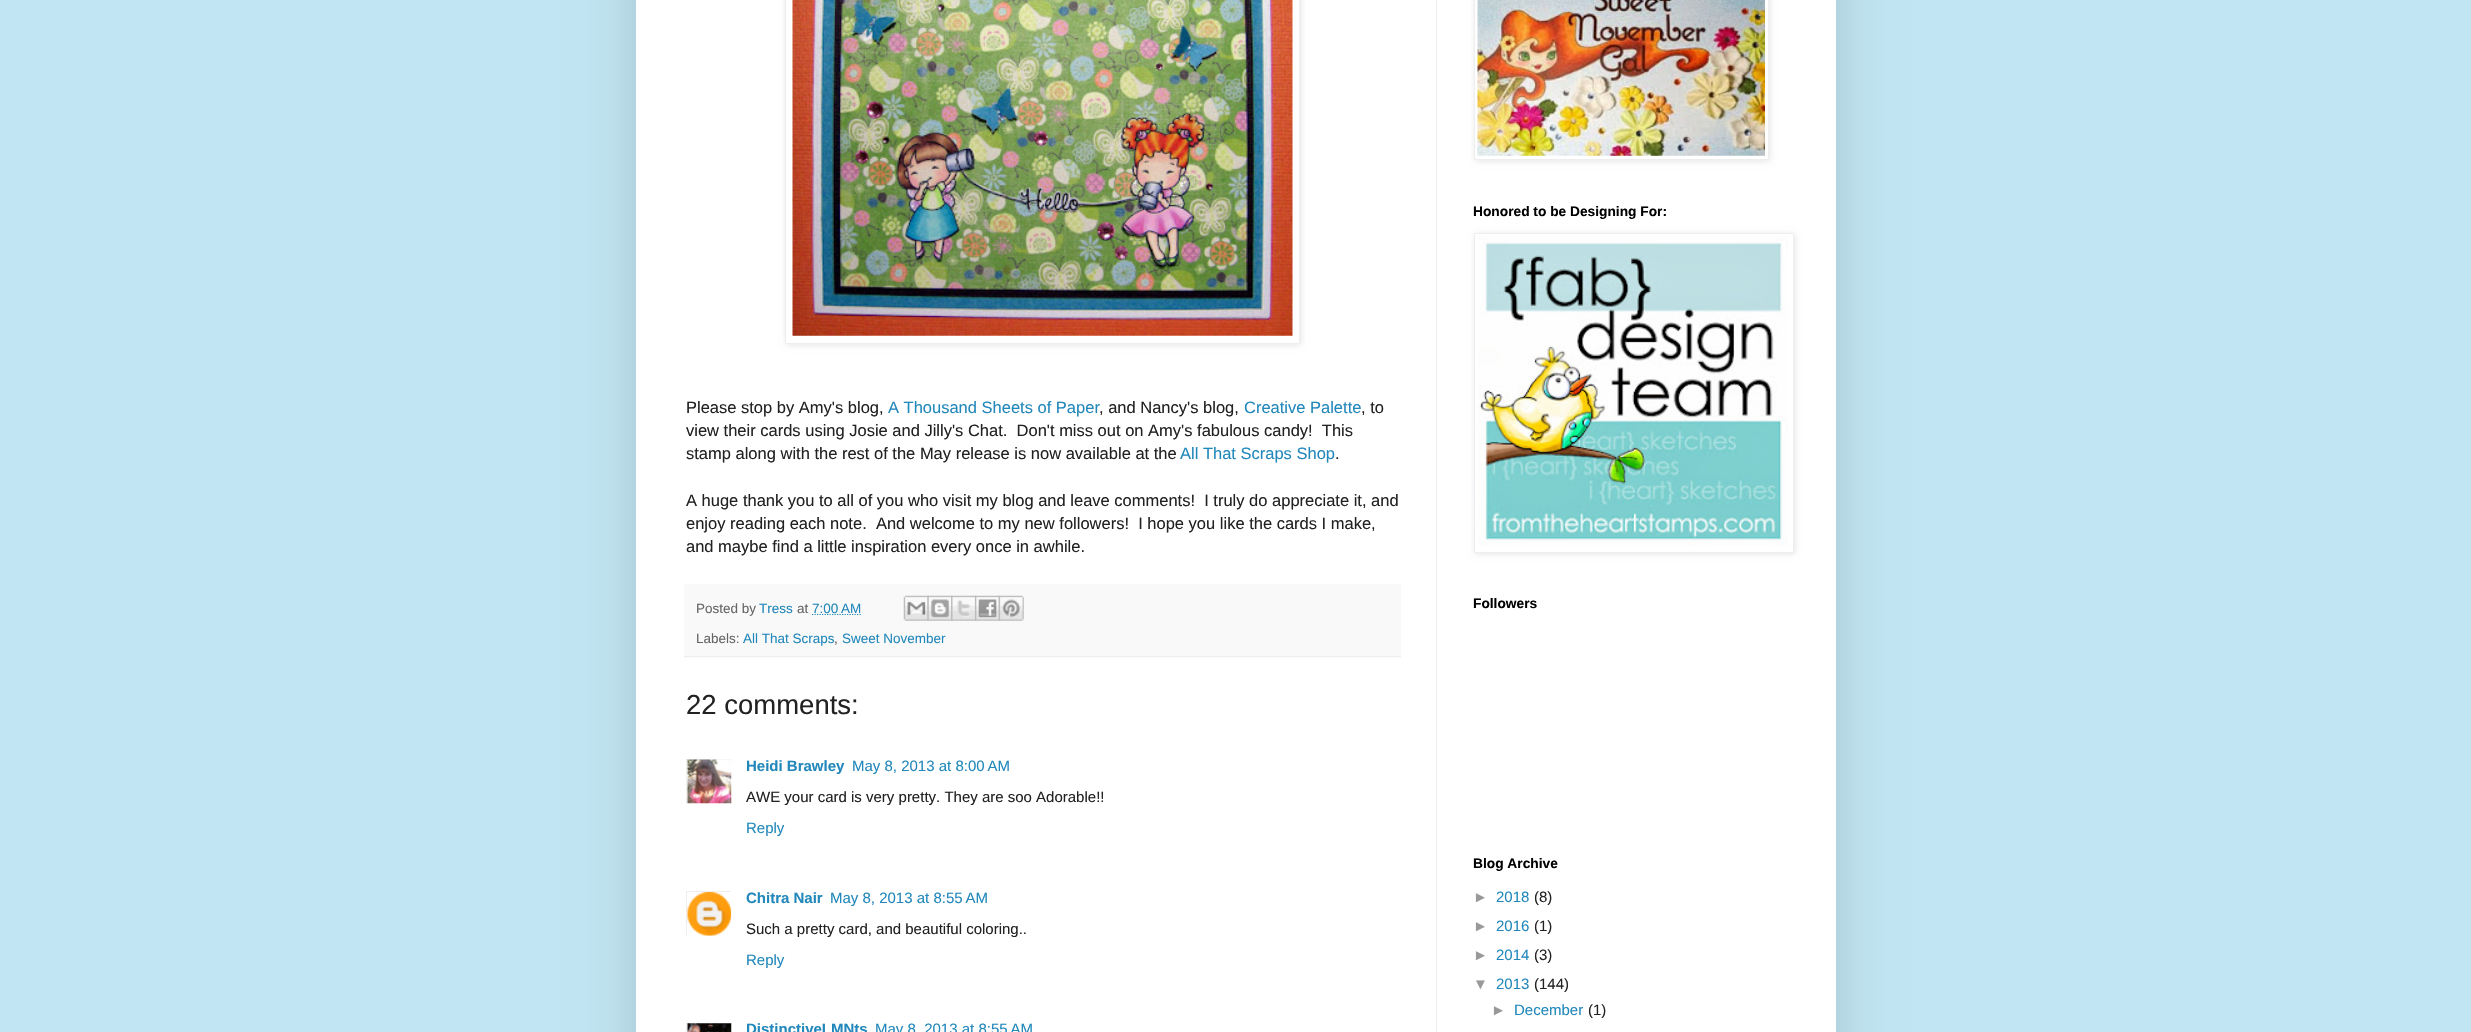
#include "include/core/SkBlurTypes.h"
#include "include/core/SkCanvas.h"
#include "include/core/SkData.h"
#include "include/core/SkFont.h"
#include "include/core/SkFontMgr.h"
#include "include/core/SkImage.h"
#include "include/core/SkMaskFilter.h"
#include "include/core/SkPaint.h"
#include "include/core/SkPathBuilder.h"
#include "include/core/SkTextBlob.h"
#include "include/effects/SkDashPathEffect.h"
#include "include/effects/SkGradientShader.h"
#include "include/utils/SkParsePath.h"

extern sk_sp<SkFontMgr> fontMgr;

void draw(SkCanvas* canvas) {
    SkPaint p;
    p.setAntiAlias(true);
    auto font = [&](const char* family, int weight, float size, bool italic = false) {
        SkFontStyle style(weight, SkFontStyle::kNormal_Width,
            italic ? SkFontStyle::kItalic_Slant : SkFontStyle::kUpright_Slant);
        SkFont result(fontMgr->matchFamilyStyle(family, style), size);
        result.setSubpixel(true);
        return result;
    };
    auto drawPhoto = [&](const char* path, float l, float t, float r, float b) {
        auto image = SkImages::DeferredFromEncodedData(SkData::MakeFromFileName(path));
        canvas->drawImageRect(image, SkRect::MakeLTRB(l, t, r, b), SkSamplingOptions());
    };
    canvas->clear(0xFFC1E5F2);
    p.setColor(0x26000000);
    p.setMaskFilter(SkMaskFilter::MakeBlur(kNormal_SkBlurStyle, 25));
    canvas->drawRect(SkRect::MakeLTRB(636, -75, 1836, 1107), p);
    p.setMaskFilter(nullptr);
    p.setColor(0xFFFFFFFF);
    canvas->drawRect(SkRect::MakeLTRB(636, 0, 1836, 1032), p);
    p.setColor(0xFFEEEEEE);
    canvas->drawRect(SkRect::MakeLTRB(1436, 0, 1437, 1032), p);
    p.setColor(0x1A000000);
    p.setMaskFilter(SkMaskFilter::MakeBlur(kNormal_SkBlurStyle, 3));
    canvas->drawRect(SkRect::MakeLTRB(786, -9, 1301, 345), p);
    p.setMaskFilter(nullptr);
    p.setColor(0xFFFFFFFF);
    canvas->drawRect(SkRect::MakeLTRB(785.5f, -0.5f, 1299.5f, 343.5f), p);
    p.setStyle(SkPaint::kStroke_Style);
    p.setStrokeWidth(1);
    p.setColor(0xFFEEEEEE);
    canvas->drawRect(SkRect::MakeLTRB(785.5f, -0.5f, 1299.5f, 343.5f), p);
    drawPhoto("media/1.png", 792, 0, 1293, 336);
    auto font1 = font("Liberation Sans", 400, 16.5f);
    p.setStyle(SkPaint::kFill_Style);
    p.setColor(0xFF222222);
    canvas->drawString("Please stop by Amy's blog,", 686, 413, font1, p);
    p.setColor(0xFF2288BB);
    canvas->drawString("A Thousand Sheets of Paper", 888, 413, font1, p);
    p.setColor(0xFF222222);
    canvas->drawString(", and Nancy's blog,", 1099, 413, font1, p);
    p.setColor(0xFF2288BB);
    canvas->drawString("Creative Palette", 1244, 413, font1, p);
    p.setColor(0xFF222222);
    {
        const struct { const char* s; float x, y; } items[] = {
            {", to", 1361, 413},
            {"view their cards using Josie and Jilly's Chat.  Don't miss out on Amy's fabulous candy!  This", 686, 436},
            {"stamp along with the rest of the May release is now available at the", 686, 459},
        };
        for (auto [s, x, y] : items) {
            canvas->drawString(s, x, y, font1, p);
        }
    }
    p.setColor(0xFF2288BB);
    canvas->drawString("All That Scraps Shop", 1180, 459, font1, p);
    p.setColor(0xFF222222);
    {
        const struct { const char* s; float x, y; } items[] = {
            {".", 1335, 459},
            {"A huge thank you to all of you who visit my blog and leave comments!  I truly do appreciate it, and", 686, 506},
            {"enjoy reading each note.  And welcome to my new followers!  I hope you like the cards I make,", 686, 529},
            {"and maybe find a little inspiration every once in awhile.", 686, 552},
        };
        for (auto [s, x, y] : items) {
            canvas->drawString(s, x, y, font1, p);
        }
    }
    p.setColor(0xFFF9F9F9);
    canvas->drawRect(SkRect::MakeLTRB(684, 584, 1401, 658), p);
    p.setColor(0xFFEEEEEE);
    canvas->drawRect(SkRect::MakeLTRB(684, 656, 1401, 657), p);
    auto font2 = font("Liberation Sans", 400, 13.5f);
    p.setColor(0xFF666666);
    canvas->drawString("Posted by", 696, 613, font2, p);
    p.setColor(0xFF2288BB);
    canvas->drawString("Tress", 759, 613, font2, p);
    p.setColor(0xFF666666);
    canvas->drawString("at", 797, 613, font2, p);
    p.setStyle(SkPaint::kStroke_Style);
    p.setStrokeWidth(1.2f);
    p.setColor(0xFF2288BB);
    p.setPathEffect(SkDashPathEffect::Make({{1.25f, 1.25f}}, 0));
    canvas->drawPath(SkPathBuilder().moveTo(812, 614.5f).lineTo(861, 614.5f).detach(), p);
    p.setPathEffect(nullptr);
    p.setStyle(SkPaint::kFill_Style);
    canvas->drawString("7:00 AM", 812, 613, font2, p);
    drawPhoto("media/2.png", 903, 595, 929, 621);
    drawPhoto("media/3.png", 927, 595, 953, 621);
    drawPhoto("media/4.png", 951, 595, 977, 621);
    drawPhoto("media/5.png", 975, 595, 1000, 621);
    drawPhoto("media/6.png", 998, 595, 1024, 621);
    p.setColor(0xFF666666);
    canvas->drawString("Labels:", 696, 643, font2, p);
    p.setColor(0xFF2288BB);
    canvas->drawString("All That Scraps", 743, 643, font2, p);
    p.setColor(0xFF666666);
    canvas->drawString(",", 834, 643, font2, p);
    p.setColor(0xFF2288BB);
    canvas->drawString("Sweet November", 842, 643, font2, p);
    auto font3 = font("Liberation Sans", 400, 27.5f);
    p.setColor(0xFF222222);
    canvas->drawString("22 comments:", 686, 714, font3, p);
    canvas->save();
    canvas->clipRect(SkRect::MakeLTRB(686, 759, 731, 804));
    p.setStyle(SkPaint::kStroke_Style);
    p.setStrokeWidth(1);
    p.setColor(0xFFEEEEEE);
    canvas->drawRect(SkRect::MakeLTRB(686.5f, 759.5f, 733.5f, 805.5f), p);
    canvas->restore();
    drawPhoto("media/7.png", 687, 759, 732, 804);
    auto font4 = font("Liberation Sans", 700, 15);
    p.setStyle(SkPaint::kFill_Style);
    p.setColor(0xFF2288BB);
    canvas->drawString("Heidi Brawley", 746, 771, font4, p);
    auto font5 = font("Liberation Sans", 400, 15);
    canvas->drawString("May 8, 2013 at 8:00 AM", 852, 771, font5, p);
    p.setColor(0xFF222222);
    canvas->drawString("AWE your card is very pretty. They are soo Adorable!!", 746, 802, font5, p);
    p.setColor(0xFF2288BB);
    canvas->drawString("Reply", 746, 833, font5, p);
    canvas->save();
    canvas->clipRect(SkRect::MakeLTRB(686, 891, 731, 936));
    p.setStyle(SkPaint::kStroke_Style);
    p.setColor(0xFFEEEEEE);
    canvas->drawRect(SkRect::MakeLTRB(686.5f, 891.5f, 732.5f, 937.5f), p);
    canvas->restore();
    drawPhoto("media/8.png", 687, 892, 732, 936);
    p.setStyle(SkPaint::kFill_Style);
    p.setColor(0xFF2288BB);
    canvas->drawString("Chitra Nair", 746, 903, font4, p);
    canvas->drawString("May 8, 2013 at 8:55 AM", 830, 903, font5, p);
    p.setColor(0xFF222222);
    canvas->drawString("Such a pretty card, and beautiful coloring..", 746, 934, font5, p);
    p.setColor(0xFF2288BB);
    canvas->drawString("Reply", 746, 965, font5, p);
    canvas->save();
    canvas->clipRect(SkRect::MakeLTRB(686, 1023, 731, 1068));
    p.setStyle(SkPaint::kStroke_Style);
    p.setColor(0xFFEEEEEE);
    canvas->drawRect(SkRect::MakeLTRB(686.5f, 1023.5f, 733.5f, 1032.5f), p);
    canvas->restore();
    drawPhoto("media/9.png", 687, 1023, 732, 1032);
    p.setStyle(SkPaint::kFill_Style);
    p.setColor(0xFF2288BB);
    canvas->drawString("DistinctiveLMNts", 746, 1034, font4, p);
    canvas->drawString("May 8, 2013 at 8:55 AM", 875, 1034, font5, p);
    p.setColor(0x1A000000);
    p.setMaskFilter(SkMaskFilter::MakeBlur(kNormal_SkBlurStyle, 3));
    canvas->drawRect(SkRect::MakeLTRB(1475, -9, 1770, 161), p);
    p.setMaskFilter(nullptr);
    p.setColor(0xFFFFFFFF);
    canvas->drawRect(SkRect::MakeLTRB(1474.5f, -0.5f, 1768.5f, 159.5f), p);
    p.setStyle(SkPaint::kStroke_Style);
    p.setColor(0xFFEEEEEE);
    canvas->drawRect(SkRect::MakeLTRB(1474.5f, -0.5f, 1768.5f, 159.5f), p);
    drawPhoto("media/10.png", 1477, 0, 1765, 156);
    auto font6 = font("Liberation Sans", 700, 13.75f);
    p.setStyle(SkPaint::kFill_Style);
    p.setColor(0xFF000000);
    canvas->drawString("Honored to be Designing For:", 1473, 216, font6, p);
    p.setColor(0x1A000000);
    p.setMaskFilter(SkMaskFilter::MakeBlur(kNormal_SkBlurStyle, 3));
    canvas->drawRect(SkRect::MakeLTRB(1475, 234, 1795, 554), p);
    p.setMaskFilter(nullptr);
    p.setColor(0xFFFFFFFF);
    canvas->drawRect(SkRect::MakeLTRB(1474.5f, 233.5f, 1793.5f, 552.5f), p);
    p.setStyle(SkPaint::kStroke_Style);
    p.setColor(0xFFEEEEEE);
    canvas->drawRect(SkRect::MakeLTRB(1474.5f, 233.5f, 1793.5f, 552.5f), p);
    drawPhoto("media/11.png", 1477, 236, 1788, 546);
    p.setStyle(SkPaint::kFill_Style);
    p.setColor(0xFF000000);
    canvas->drawString("Followers", 1473, 608, font6, p);
    canvas->drawString("Blog Archive", 1473, 868, font6, p);
    p.setColor(0xFF999999);
    canvas->drawString("►", 1473, 902, font5, p);
    p.setColor(0xFF2288BB);
    canvas->drawString("2018", 1496, 902, font5, p);
    p.setColor(0xFF222222);
    canvas->drawString("(8)", 1534, 902, font5, p);
    p.setColor(0xFF999999);
    canvas->drawString("►", 1473, 931, font5, p);
    p.setColor(0xFF2288BB);
    canvas->drawString("2016", 1496, 931, font5, p);
    p.setColor(0xFF222222);
    canvas->drawString("(1)", 1534, 931, font5, p);
    p.setColor(0xFF999999);
    canvas->drawString("►", 1473, 960, font5, p);
    p.setColor(0xFF2288BB);
    canvas->drawString("2014", 1496, 960, font5, p);
    p.setColor(0xFF222222);
    canvas->drawString("(3)", 1534, 960, font5, p);
    p.setColor(0xFF999999);
    canvas->drawString("▼", 1473, 989, font5, p);
    p.setColor(0xFF2288BB);
    canvas->drawString("2013", 1496, 989, font5, p);
    p.setColor(0xFF222222);
    canvas->drawString("(144)", 1534, 989, font5, p);
    p.setColor(0xFF999999);
    canvas->drawString("►", 1491, 1015, font5, p);
    p.setColor(0xFF2288BB);
    canvas->drawString("December", 1514, 1015, font5, p);
    p.setColor(0xFF222222);
    canvas->drawString("(1)", 1588, 1015, font5, p);
}
